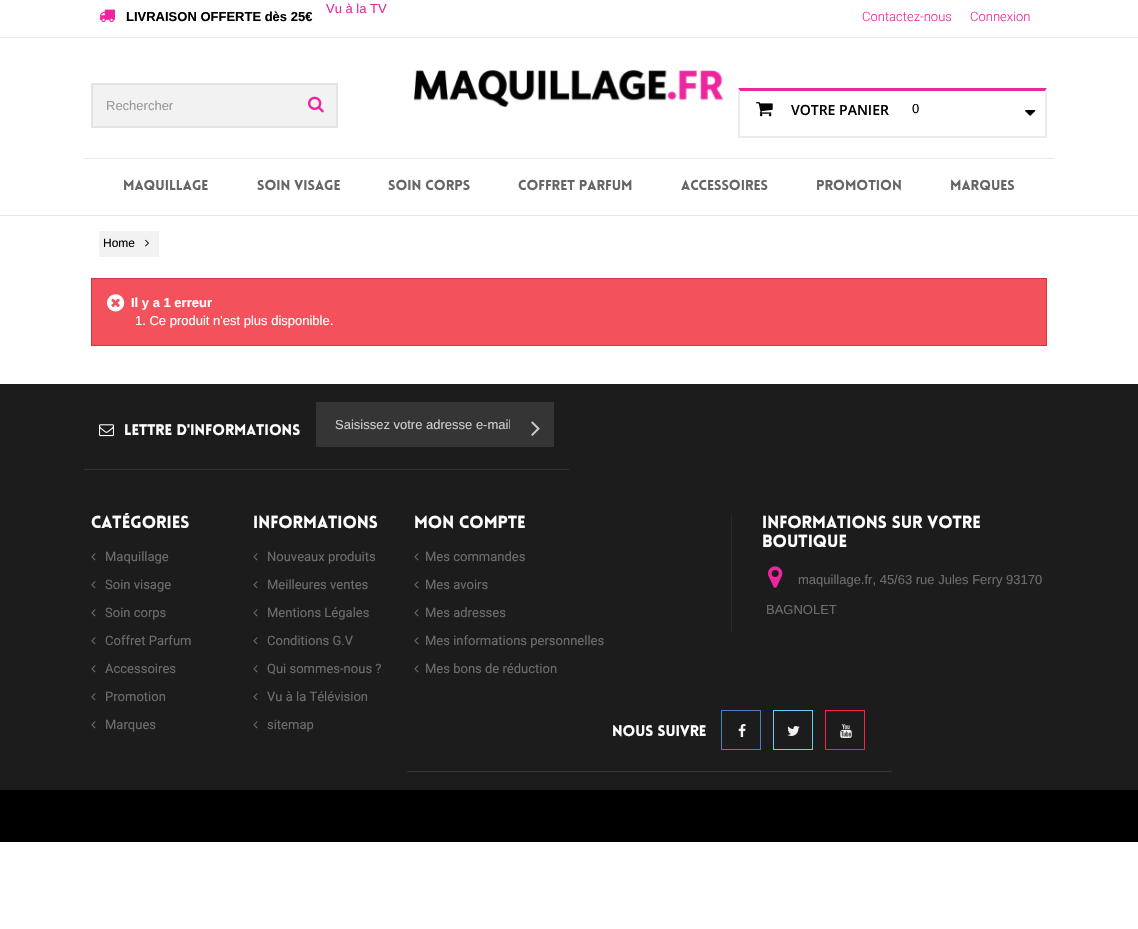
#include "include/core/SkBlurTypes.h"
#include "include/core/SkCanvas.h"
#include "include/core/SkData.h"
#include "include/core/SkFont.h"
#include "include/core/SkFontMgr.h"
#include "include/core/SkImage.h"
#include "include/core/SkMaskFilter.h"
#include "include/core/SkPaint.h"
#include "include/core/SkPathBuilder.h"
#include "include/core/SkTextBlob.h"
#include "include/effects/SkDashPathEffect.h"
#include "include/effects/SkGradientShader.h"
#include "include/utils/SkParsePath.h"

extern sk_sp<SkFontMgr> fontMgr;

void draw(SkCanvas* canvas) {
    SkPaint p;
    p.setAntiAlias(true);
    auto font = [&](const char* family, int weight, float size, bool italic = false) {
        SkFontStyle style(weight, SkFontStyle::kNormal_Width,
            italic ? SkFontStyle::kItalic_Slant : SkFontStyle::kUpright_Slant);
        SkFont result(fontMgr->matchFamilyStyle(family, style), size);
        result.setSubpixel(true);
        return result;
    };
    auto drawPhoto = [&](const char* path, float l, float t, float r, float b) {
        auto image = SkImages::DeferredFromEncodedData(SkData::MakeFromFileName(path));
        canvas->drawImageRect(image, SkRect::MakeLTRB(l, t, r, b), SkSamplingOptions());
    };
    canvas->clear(0xFFFFFFFF);
    canvas->save();
    canvas->clipRect(SkRect::MakeLTRB(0, 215, 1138, 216));
    p.setColor(0x1A000000);
    p.setMaskFilter(SkMaskFilter::MakeBlur(kNormal_SkBlurStyle, 0.5f));
    canvas->drawRect(SkRect::MakeLTRB(0, 1, 1138, 216), p);
    p.setMaskFilter(nullptr);
    canvas->restore();
    p.setColor(0xFFEBEBEB);
    canvas->drawRect(SkRect::MakeLTRB(0, 37, 1138, 38), p);
    auto font1 = font("Liberation Sans", 400, 13);
    p.setColor(0xFFEE269E);
    canvas->drawString("Vu à la TV", 326, 13, font1, p);
    drawPhoto("media/1.png", 99, 9, 115, 23);
    auto font2 = font("Liberation Sans", 700, 13);
    p.setColor(0xFF000000);
    canvas->drawString("LIVRAISON OFFERTE dès 25€", 126, 21, font2, p);
    auto font3 = font("Roboto", 300, 13);
    p.setColor(0xFFEE269E);
    canvas->drawString("Contactez-nous", 862, 21, font3, p);
    canvas->drawString("Connexion", 970, 21, font3, p);
    p.setColor(0xFFF2F2F2);
    canvas->drawRect(SkRect::MakeLTRB(92, 84, 337, 127), p);
    p.setStyle(SkPaint::kStroke_Style);
    p.setStrokeWidth(2);
    p.setColor(0xFFE2E3E4);
    canvas->drawRect(SkRect::MakeLTRB(92, 84, 337, 127), p);
    p.setStyle(SkPaint::kFill_Style);
    p.setColor(0xFF999999);
    canvas->drawString("Rechercher", 106, 110, font1, p);
    drawPhoto("media/2.png", 308, 96, 324, 113);
    drawPhoto("media/3.png", 414, 70, 724, 107);
    p.setColor(0xFFEE269E);
    canvas->drawPath(SkPathBuilder().moveTo(738, 88).lineTo(1047, 88).lineTo(1045, 91).lineTo(740, 91).close().detach(), p);
    p.setColor(0xFFEBEBEB);
    canvas->drawPath(SkPathBuilder().moveTo(1047, 88).lineTo(1047, 138).lineTo(1045, 136).lineTo(1045, 91).close().detach(), p);
    canvas->drawRect(SkRect::MakeLTRB(738, 136, 1047, 138), p);
    canvas->drawPath(SkPathBuilder().moveTo(738, 138).lineTo(738, 88).lineTo(740, 91).lineTo(740, 136).close().detach(), p);
    drawPhoto("media/4.png", 756, 102, 773, 117);
    auto font4 = font("Open Sans", 600, 14);
    p.setColor(0xFF000000);
    canvas->drawString("VOTRE PANIER", 791, 115, font4, p);
    canvas->drawString("0", 912, 113, font1, p);
    drawPhoto("media/5.png", 1025, 110, 1036, 116);
    p.setColor(0xFFEBEBEB);
    canvas->drawRect(SkRect::MakeLTRB(84, 158, 1054, 159), p);
    auto font5 = font("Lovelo", 900, 14);
    p.setColor(0xFF666666);
    {
        const struct { const char* s; float x, y; } items[] = {
            {"MAQUILLAGE", 123, 190},
            {"SOIN VISAGE", 257, 190},
            {"SOIN CORPS", 388, 190},
            {"COFFRET PARFUM", 518, 190},
            {"ACCESSOIRES", 681, 190},
            {"PROMOTION", 816, 190},
            {"MARQUES", 950, 190},
        };
        for (auto [s, x, y] : items) {
            canvas->drawString(s, x, y, font5, p);
        }
    }
    p.setColor(0xFFF2F2F2);
    canvas->drawRect(SkRect::MakeLTRB(99, 231, 159, 257), p);
    auto font6 = font("Liberation Sans", 400, 12);
    p.setColor(0xFF000000);
    canvas->drawString("Home", 103, 247, font6, p);
    drawPhoto("media/6.png", 145, 239, 149, 247);
    p.setColor(0xFFF3515C);
    canvas->drawRect(SkRect::MakeLTRB(91.5f, 278.5f, 1046.5f, 345.5f), p);
    p.setStyle(SkPaint::kStroke_Style);
    p.setStrokeWidth(1);
    p.setColor(0xFFD4323D);
    canvas->drawRect(SkRect::MakeLTRB(91.5f, 278.5f, 1046.5f, 345.5f), p);
    drawPhoto("media/7.png", 107, 294, 125, 312);
    p.setStyle(SkPaint::kFill_Style);
    p.setColor(0xFFFFFFFF);
    canvas->drawString("Il y a 1 erreur", 131, 307, font2, p);
    canvas->drawString("1. Ce produit n'est plus disponible.", 135, 325, font1, p);
    {
        const struct { float l, t, r, b; SkColor color; } items[] = {
            {0, 384, 1138, 790, 0xFF1C1C1C},
            {0, 790, 1138, 842, 0xFF000000},
            {84, 469, 569, 470, 0xFF353535},
        };
        for (auto [l, t, r, b, color] : items) {
            p.setColor(color);
            canvas->drawRect(SkRect::MakeLTRB(l, t, r, b), p);
        }
    }
    drawPhoto("media/8.png", 99, 424, 114, 437);
    auto font7 = font("Lovelo", 900, 15);
    p.setColor(0xFFFFFFFF);
    canvas->drawString("Lettre d'informations", 124, 435, font7, p);
    p.setColor(0xFF353535);
    canvas->drawRect(SkRect::MakeLTRB(316, 402, 554, 447), p);
    canvas->save();
    canvas->clipRect(SkRect::MakeLTRB(335, 417, 510, 432));
    p.setColor(0xFFCCCCCC);
    canvas->drawString("Saisissez votre adresse e-mail", 335, 429, font1, p);
    canvas->restore();
    drawPhoto("media/9.png", 531, 421, 540, 436);
    auto font8 = font("Lovelo", 900, 17);
    p.setColor(0xFFFFFFFF);
    canvas->drawString("CATÉGORIES", 91, 528, font8, p);
    drawPhoto("media/10.png", 91, 553, 96, 561);
    auto font9 = font("Roboto", 400, 13);
    p.setColor(0xFF6C6D70);
    canvas->drawString("Maquillage", 105, 561, font9, p);
    drawPhoto("media/10.png", 91, 581, 96, 589);
    canvas->drawString("Soin visage", 105, 589, font9, p);
    drawPhoto("media/10.png", 91, 609, 96, 617);
    canvas->drawString("Soin corps", 105, 617, font9, p);
    drawPhoto("media/10.png", 91, 637, 96, 645);
    canvas->drawString("Coffret Parfum", 105, 645, font9, p);
    drawPhoto("media/10.png", 91, 665, 96, 673);
    canvas->drawString("Accessoires", 105, 673, font9, p);
    drawPhoto("media/10.png", 91, 693, 96, 701);
    canvas->drawString("Promotion", 105, 701, font9, p);
    drawPhoto("media/10.png", 91, 721, 96, 729);
    canvas->drawString("Marques", 105, 729, font9, p);
    p.setColor(0xFFFFFFFF);
    canvas->drawString("INFORMATIONS", 253, 528, font8, p);
    drawPhoto("media/10.png", 253, 553, 258, 561);
    p.setColor(0xFF6C6D70);
    canvas->drawString("Nouveaux produits", 267, 561, font9, p);
    drawPhoto("media/10.png", 253, 581, 258, 589);
    canvas->drawString("Meilleures ventes", 267, 589, font9, p);
    drawPhoto("media/10.png", 253, 609, 258, 617);
    canvas->drawString("Mentions Légales", 267, 617, font9, p);
    drawPhoto("media/10.png", 253, 637, 258, 645);
    canvas->drawString("Conditions G.V", 267, 645, font9, p);
    drawPhoto("media/10.png", 253, 665, 258, 673);
    canvas->drawString("Qui sommes-nous ?", 267, 673, font9, p);
    drawPhoto("media/10.png", 253, 693, 258, 701);
    canvas->drawString("Vu à la Télévision", 267, 701, font9, p);
    drawPhoto("media/10.png", 253, 721, 258, 729);
    canvas->drawString("sitemap", 267, 729, font9, p);
    p.setColor(0xFFFFFFFF);
    canvas->drawString("MON COMPTE", 414, 528, font8, p);
    drawPhoto("media/10.png", 414, 553, 419, 561);
    p.setColor(0xFF6C6D70);
    canvas->drawString("Mes commandes", 425, 561, font9, p);
    drawPhoto("media/10.png", 414, 581, 419, 589);
    canvas->drawString("Mes avoirs", 425, 589, font9, p);
    drawPhoto("media/10.png", 414, 609, 419, 617);
    canvas->drawString("Mes adresses", 425, 617, font9, p);
    drawPhoto("media/10.png", 414, 637, 419, 645);
    canvas->drawString("Mes informations personnelles", 425, 645, font9, p);
    drawPhoto("media/10.png", 414, 665, 419, 673);
    canvas->drawString("Mes bons de réduction", 425, 673, font9, p);
    p.setStyle(SkPaint::kStroke_Style);
    p.setColor(0xFF353535);
    p.setPathEffect(SkDashPathEffect::Make({{1, 1}}, 0));
    canvas->drawPath(SkPathBuilder().moveTo(731.5f, 515).lineTo(731.5f, 632).detach(), p);
    p.setPathEffect(nullptr);
    p.setStyle(SkPaint::kFill_Style);
    p.setColor(0xFFFFFFFF);
    canvas->drawString("INFORMATIONS SUR VOTRE", 762, 528, font8, p);
    canvas->drawString("BOUTIQUE", 762, 547, font8, p);
    drawPhoto("media/11.png", 768, 566, 783, 588);
    p.setColor(0xFF6C6D70);
    canvas->drawString("maquillage.fr, 45/63 rue Jules Ferry 93170", 798, 584, font1, p);
    canvas->drawString("BAGNOLET", 766, 614, font1, p);
    p.setColor(0xFF353535);
    canvas->drawRect(SkRect::MakeLTRB(407, 771, 892, 772), p);
    p.setColor(0xFFFFFFFF);
    canvas->drawString("Nous suivre", 612, 736, font7, p);
    p.setStyle(SkPaint::kStroke_Style);
    p.setColor(0xFF507CBE);
    canvas->drawRect(SkRect::MakeLTRB(721.5f, 710.5f, 760.5f, 749.5f), p);
    drawPhoto("media/12.png", 738, 724, 746, 737);
    p.setColor(0xFF63CDF1);
    canvas->drawRect(SkRect::MakeLTRB(773.5f, 710.5f, 812.5f, 749.5f), p);
    drawPhoto("media/13.png", 787, 726, 800, 736);
    p.setColor(0xFFFC2341);
    canvas->drawRect(SkRect::MakeLTRB(825.5f, 710.5f, 864.5f, 749.5f), p);
    drawPhoto("media/14.png", 840, 724, 852, 738);
}
